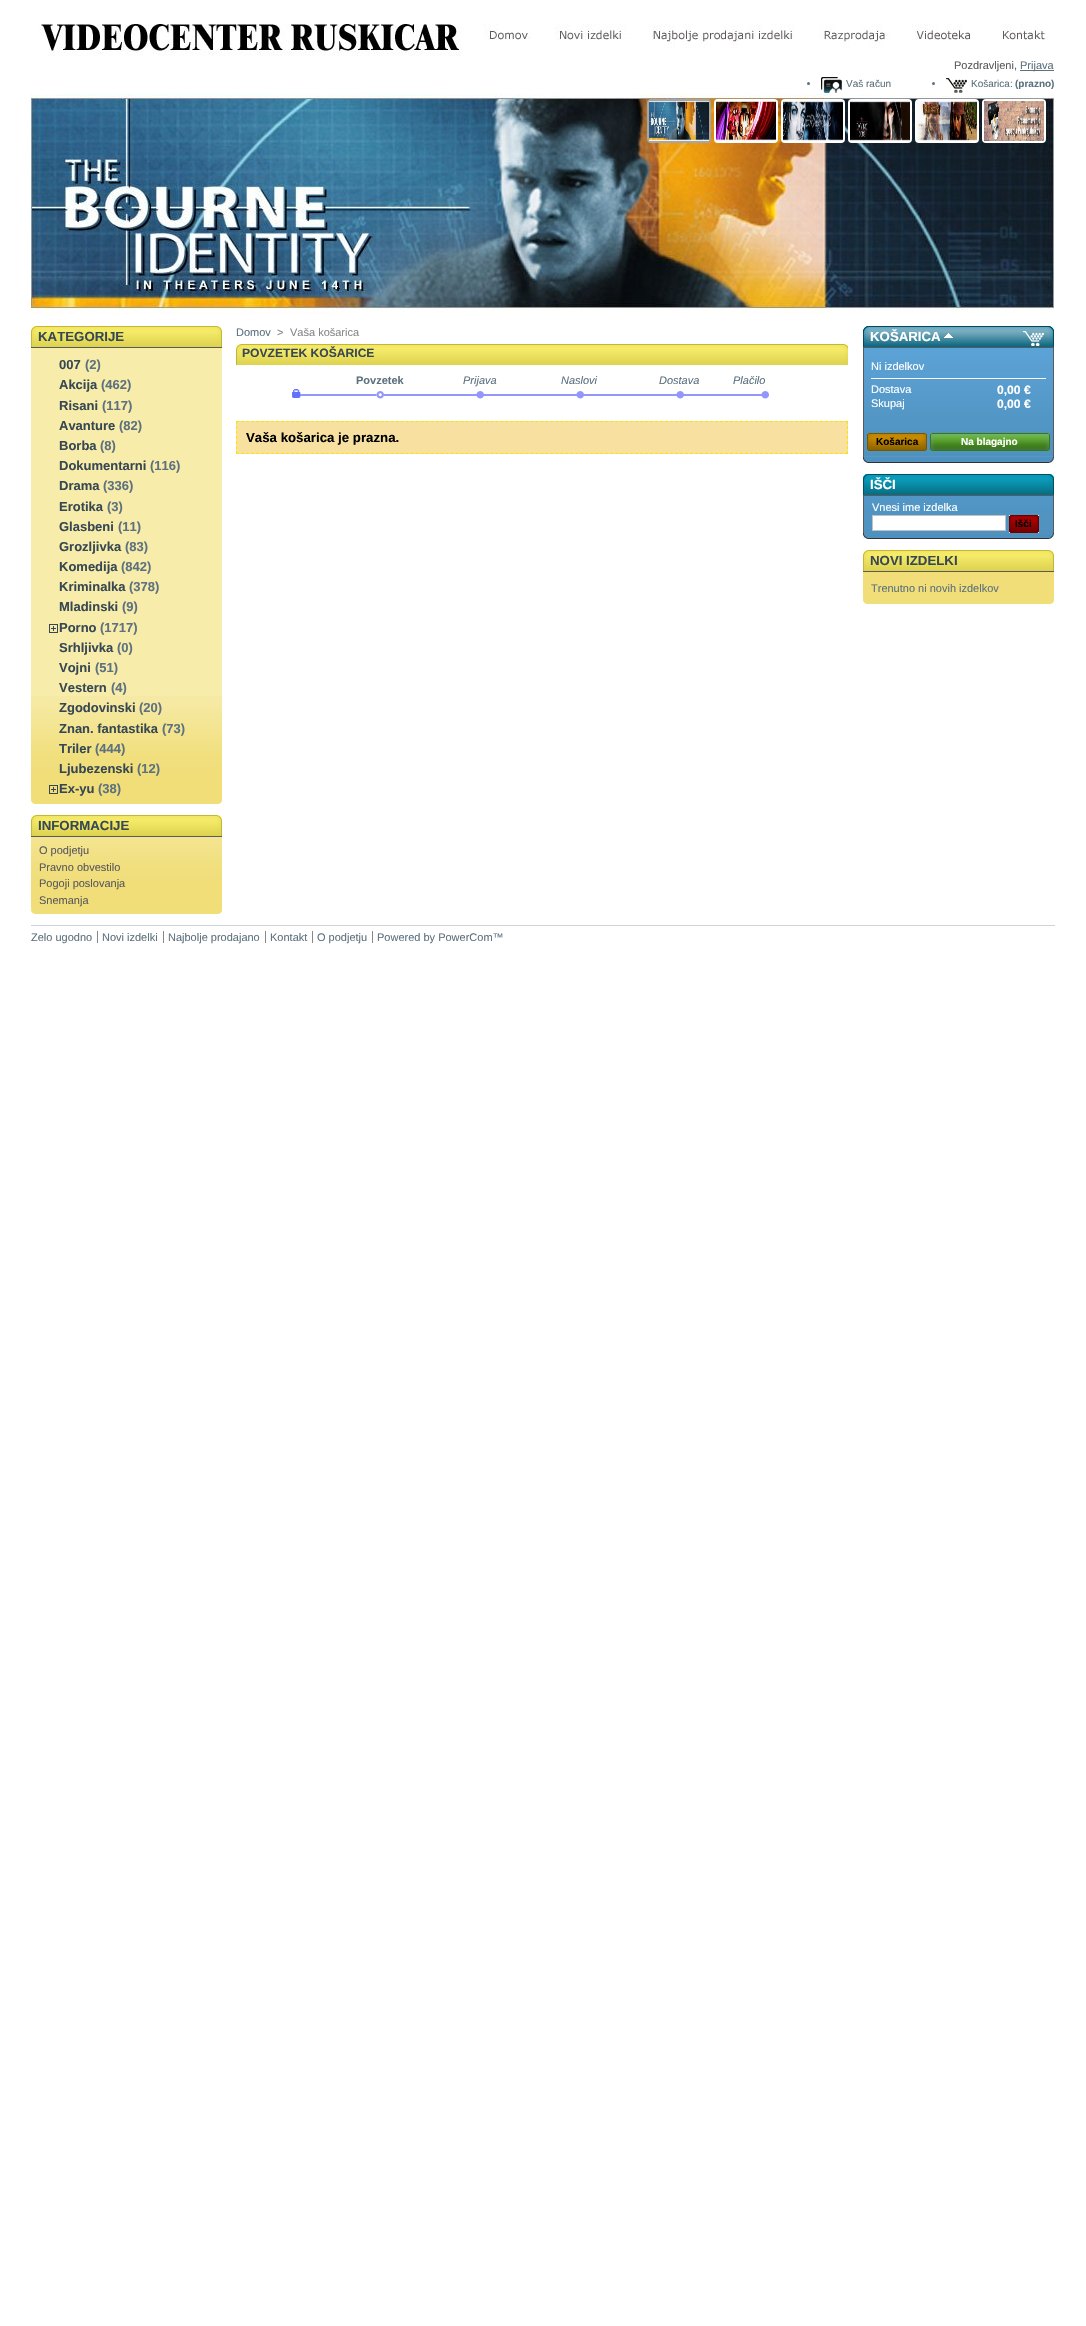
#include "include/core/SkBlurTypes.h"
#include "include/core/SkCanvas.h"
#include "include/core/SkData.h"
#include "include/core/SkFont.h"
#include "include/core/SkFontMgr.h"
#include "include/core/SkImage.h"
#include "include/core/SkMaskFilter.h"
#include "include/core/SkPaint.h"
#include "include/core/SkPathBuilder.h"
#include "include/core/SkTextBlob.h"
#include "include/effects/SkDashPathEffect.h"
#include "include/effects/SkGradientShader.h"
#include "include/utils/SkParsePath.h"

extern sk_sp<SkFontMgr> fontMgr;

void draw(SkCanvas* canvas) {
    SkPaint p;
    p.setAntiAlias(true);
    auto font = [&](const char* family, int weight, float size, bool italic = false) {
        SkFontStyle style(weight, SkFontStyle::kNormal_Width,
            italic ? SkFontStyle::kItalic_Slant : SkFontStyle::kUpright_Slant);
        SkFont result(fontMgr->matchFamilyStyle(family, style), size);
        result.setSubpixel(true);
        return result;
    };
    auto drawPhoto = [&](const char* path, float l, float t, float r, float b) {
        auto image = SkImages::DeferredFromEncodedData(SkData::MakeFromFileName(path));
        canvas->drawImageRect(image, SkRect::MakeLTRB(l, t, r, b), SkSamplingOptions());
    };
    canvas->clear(0xFFFFFFFF);
    drawPhoto("media/1.png", 39, 24, 462, 56);
    drawPhoto("media/2.png", 483, 24, 1049, 48);
    auto font1 = font("Liberation Sans", 400, 11);
    p.setColor(0xFF595A5E);
    canvas->drawString("Pozdravljeni,", 954, 69, font1, p);
    p.setColor(0xFF5D717E);
    canvas->drawRect(SkRect::MakeLTRB(1020, 70, 1054, 71), p);
    canvas->drawString("Prijava", 1020, 69, font1, p);
    canvas->drawCircle(808.5f, 83.5f, 1.5f, p);
    drawPhoto("media/3.png", 821, 77, 842, 93);
    auto font2 = font("Liberation Sans", 400, 10);
    canvas->drawString("Vaš račun", 846, 87, font2, p);
    canvas->drawCircle(933.5f, 83.5f, 1.5f, p);
    drawPhoto("media/4.png", 946, 78, 967, 93);
    canvas->drawString("Košarica:", 971, 87, font2, p);
    auto font3 = font("Liberation Sans", 700, 10);
    canvas->drawString("(prazno)", 1015, 87, font3, p);
    drawPhoto("media/5.png", 31, 94, 1054, 314);
    p.setStyle(SkPaint::kStroke_Style);
    p.setStrokeWidth(2);
    p.setColor(0xFFA6A6A6);
    canvas->drawRoundRect(SkRect::MakeLTRB(648, 100, 710, 142), 3, 3, p);
    drawPhoto("media/6.png", 649, 101, 709, 141);
    p.setColor(0xFFFFFFFF);
    canvas->drawRoundRect(SkRect::MakeLTRB(715, 100, 777, 142), 3, 3, p);
    drawPhoto("media/7.png", 716, 101, 776, 141);
    canvas->drawRoundRect(SkRect::MakeLTRB(782, 100, 844, 142), 3, 3, p);
    drawPhoto("media/8.png", 783, 101, 843, 141);
    canvas->drawRoundRect(SkRect::MakeLTRB(849, 100, 911, 142), 3, 3, p);
    drawPhoto("media/9.png", 850, 101, 910, 141);
    canvas->drawRoundRect(SkRect::MakeLTRB(916, 100, 978, 142), 3, 3, p);
    drawPhoto("media/10.png", 917, 101, 977, 141);
    canvas->drawRoundRect(SkRect::MakeLTRB(983, 100, 1045, 142), 3, 3, p);
    drawPhoto("media/11.png", 984, 101, 1044, 141);
    drawPhoto("media/12.png", 31, 798, 222, 804);
    drawPhoto("media/13.png", 31, 326, 222, 347);
    p.setStyle(SkPaint::kFill_Style);
    p.setColor(0xFF595A5E);
    canvas->drawRect(SkRect::MakeLTRB(31, 347, 222, 348), p);
    auto font4 = font("Liberation Sans", 700, 13.25f);
    p.setColor(0xFF374853);
    canvas->drawString("KATEGORIJE", 38, 341, font4, p);
    p.setColor(0xFFF7ECAA);
    canvas->drawRect(SkRect::MakeLTRB(31, 348, 222, 696), p);
    drawPhoto("media/14.png", 31, 696, 222, 798);
    auto font5 = font("Liberation Sans", 700, 13);
    p.setColor(0xFF374853);
    canvas->drawString("007", 59, 369, font5, p);
    p.setColor(0xFF5D717E);
    canvas->drawString("(2)", 85, 369, font5, p);
    p.setColor(0xFF374853);
    canvas->drawString("Akcija", 59, 389, font5, p);
    p.setColor(0xFF5D717E);
    canvas->drawString("(462)", 101, 389, font5, p);
    p.setColor(0xFF374853);
    canvas->drawString("Risani", 59, 410, font5, p);
    p.setColor(0xFF5D717E);
    canvas->drawString("(117)", 102, 410, font5, p);
    p.setColor(0xFF374853);
    canvas->drawString("Avanture", 59, 430, font5, p);
    p.setColor(0xFF5D717E);
    canvas->drawString("(82)", 119, 430, font5, p);
    p.setColor(0xFF374853);
    canvas->drawString("Borba", 59, 450, font5, p);
    p.setColor(0xFF5D717E);
    canvas->drawString("(8)", 100, 450, font5, p);
    p.setColor(0xFF374853);
    canvas->drawString("Dokumentarni", 59, 470, font5, p);
    p.setColor(0xFF5D717E);
    canvas->drawString("(116)", 150, 470, font5, p);
    p.setColor(0xFF374853);
    canvas->drawString("Drama", 59, 490, font5, p);
    p.setColor(0xFF5D717E);
    canvas->drawString("(336)", 103, 490, font5, p);
    p.setColor(0xFF374853);
    canvas->drawString("Erotika", 59, 511, font5, p);
    p.setColor(0xFF5D717E);
    canvas->drawString("(3)", 107, 511, font5, p);
    p.setColor(0xFF374853);
    canvas->drawString("Glasbeni", 59, 531, font5, p);
    p.setColor(0xFF5D717E);
    canvas->drawString("(11)", 118, 531, font5, p);
    p.setColor(0xFF374853);
    canvas->drawString("Grozljivka", 59, 551, font5, p);
    p.setColor(0xFF5D717E);
    canvas->drawString("(83)", 125, 551, font5, p);
    p.setColor(0xFF374853);
    canvas->drawString("Komedija", 59, 571, font5, p);
    p.setColor(0xFF5D717E);
    canvas->drawString("(842)", 121, 571, font5, p);
    p.setColor(0xFF374853);
    canvas->drawString("Kriminalka", 59, 591, font5, p);
    p.setColor(0xFF5D717E);
    canvas->drawString("(378)", 129, 591, font5, p);
    p.setColor(0xFF374853);
    canvas->drawString("Mladinski", 59, 611, font5, p);
    p.setColor(0xFF5D717E);
    canvas->drawString("(9)", 122, 611, font5, p);
    drawPhoto("media/15.png", 49, 624, 58, 633);
    p.setColor(0xFF374853);
    canvas->drawString("Porno", 59, 632, font5, p);
    p.setColor(0xFF5D717E);
    canvas->drawString("(1717)", 100, 632, font5, p);
    p.setColor(0xFF374853);
    canvas->drawString("Srhljivka", 59, 652, font5, p);
    p.setColor(0xFF5D717E);
    canvas->drawString("(0)", 117, 652, font5, p);
    p.setColor(0xFF374853);
    canvas->drawString("Vojni", 59, 672, font5, p);
    p.setColor(0xFF5D717E);
    canvas->drawString("(51)", 95, 672, font5, p);
    p.setColor(0xFF374853);
    canvas->drawString("Vestern", 59, 692, font5, p);
    p.setColor(0xFF5D717E);
    canvas->drawString("(4)", 111, 692, font5, p);
    p.setColor(0xFF374853);
    canvas->drawString("Zgodovinski", 59, 712, font5, p);
    p.setColor(0xFF5D717E);
    canvas->drawString("(20)", 139, 712, font5, p);
    p.setColor(0xFF374853);
    canvas->drawString("Znan. fantastika", 59, 733, font5, p);
    p.setColor(0xFF5D717E);
    canvas->drawString("(73)", 162, 733, font5, p);
    p.setColor(0xFF374853);
    canvas->drawString("Triler", 59, 753, font5, p);
    p.setColor(0xFF5D717E);
    canvas->drawString("(444)", 95, 753, font5, p);
    p.setColor(0xFF374853);
    canvas->drawString("Ljubezenski", 59, 773, font5, p);
    p.setColor(0xFF5D717E);
    canvas->drawString("(12)", 137, 773, font5, p);
    drawPhoto("media/16.png", 49, 785, 58, 794);
    p.setColor(0xFF374853);
    canvas->drawString("Ex-yu", 59, 793, font5, p);
    p.setColor(0xFF5D717E);
    canvas->drawString("(38)", 98, 793, font5, p);
    drawPhoto("media/12.png", 31, 908, 222, 914);
    drawPhoto("media/13.png", 31, 815, 222, 836);
    p.setColor(0xFF595A5E);
    canvas->drawRect(SkRect::MakeLTRB(31, 836, 222, 837), p);
    p.setColor(0xFF374853);
    canvas->drawString("INFORMACIJE", 38, 830, font4, p);
    drawPhoto("media/17.png", 31, 837, 222, 908);
    p.setColor(0xFF595A5E);
    {
        const struct { const char* s; float x, y; } items[] = {
            {"O podjetju", 39, 854},
            {"Pravno obvestilo", 39, 871},
            {"Pogoji poslovanja", 39, 887},
            {"Snemanja", 39, 904},
        };
        for (auto [s, x, y] : items) {
            canvas->drawString(s, x, y, font1, p);
        }
    }
    p.setColor(0xFF5D717E);
    canvas->drawString("Domov", 236, 336, font1, p);
    p.setColor(0xFF888888);
    canvas->drawString(">", 277, 336, font1, p);
    canvas->drawString("Vaša košarica", 290, 336, font1, p);
    drawPhoto("media/18.png", 236, 344, 848, 365);
    auto font6 = font("Liberation Sans", 700, 12.1f);
    p.setColor(0xFF374853);
    canvas->drawString("POVZETEK KOŠARICE", 242, 357, font6, p);
    drawPhoto("media/19.png", 292, 389, 331, 398);
    drawPhoto("media/20.png", 331, 391, 430, 399);
    auto font7 = font("Liberation Sans", 700, 11);
    p.setColor(0xFF5D717E);
    canvas->drawString("Povzetek", 356, 384, font7, p);
    drawPhoto("media/21.png", 430, 391, 530, 399);
    auto font8 = font("Liberation Sans", 400, 11, true);
    canvas->drawString("Prijava", 463, 384, font8, p);
    drawPhoto("media/21.png", 530, 391, 630, 399);
    canvas->drawString("Naslovi", 561, 384, font8, p);
    drawPhoto("media/21.png", 630, 391, 730, 399);
    canvas->drawString("Dostava", 659, 384, font8, p);
    drawPhoto("media/22.png", 730, 391, 769, 399);
    canvas->drawString("Plačilo", 733, 384, font8, p);
    p.setColor(0xFFF8E1A0);
    canvas->drawRect(SkRect::MakeLTRB(236, 421, 848, 454), p);
    p.setStyle(SkPaint::kStroke_Style);
    p.setStrokeWidth(1);
    p.setColor(0xFFF9E400);
    p.setPathEffect(SkDashPathEffect::Make({{3, 1.99f}}, 0));
    canvas->drawPath(SkPathBuilder().moveTo(236, 421.5f).lineTo(848, 421.5f).detach(), p);
    p.setPathEffect(nullptr);
    p.setPathEffect(SkDashPathEffect::Make({{3, 2}}, 0));
    canvas->drawPath(SkPathBuilder().moveTo(847.5f, 421).lineTo(847.5f, 454).detach(), p);
    p.setPathEffect(nullptr);
    p.setPathEffect(SkDashPathEffect::Make({{3, 1.99f}}, 0));
    canvas->drawPath(SkPathBuilder().moveTo(236, 453.5f).lineTo(848, 453.5f).detach(), p);
    p.setPathEffect(nullptr);
    p.setPathEffect(SkDashPathEffect::Make({{3, 2}}, 0));
    canvas->drawPath(SkPathBuilder().moveTo(236.5f, 421).lineTo(236.5f, 454).detach(), p);
    p.setPathEffect(nullptr);
    p.setStyle(SkPaint::kFill_Style);
    p.setColor(0xFF000000);
    canvas->drawString("Vaša košarica je prazna.", 246, 442, font4, p);
    drawPhoto("media/23.png", 863, 457, 1054, 463);
    drawPhoto("media/24.png", 863, 326, 1054, 347);
    p.setColor(0xFF595A5E);
    canvas->drawRect(SkRect::MakeLTRB(863, 347, 1054, 348), p);
    p.setColor(0xFFFFFFFF);
    canvas->drawString("KOŠARICA", 870, 341, font4, p);
    drawPhoto("media/25.png", 944, 333, 953, 338);
    drawPhoto("media/26.png", 864, 348, 1053, 457);
    p.setColor(0xFF595A5E);
    canvas->drawRect(SkRect::MakeLTRB(1053, 348, 1054, 457), p);
    canvas->drawRect(SkRect::MakeLTRB(863, 348, 864, 457), p);
    p.setColor(0xFFFFFFFF);
    canvas->drawString("Ni izdelkov", 871, 370, font1, p);
    canvas->drawRect(SkRect::MakeLTRB(871, 378, 1046, 379), p);
    canvas->drawString("Dostava", 871, 393, font1, p);
    canvas->drawString("0,00 €", 997, 394, font6, p);
    canvas->drawString("Skupaj", 871, 407, font1, p);
    canvas->drawString("0,00 €", 997, 408, font6, p);
    drawPhoto("media/27.png", 867, 433, 927, 451);
    p.setColor(0xFF000000);
    canvas->drawString("Košarica", 876, 445, font3, p);
    drawPhoto("media/28.png", 930, 433, 1050, 451);
    p.setColor(0xFFFFFFFF);
    canvas->drawString("Na blagajno", 961, 445, font3, p);
    drawPhoto("media/23.png", 863, 533, 1054, 539);
    drawPhoto("media/29.png", 863, 474, 1054, 495);
    p.setColor(0xFF595A5E);
    canvas->drawRect(SkRect::MakeLTRB(863, 495, 1054, 496), p);
    p.setColor(0xFFFFFFFF);
    canvas->drawString("IŠČI", 870, 489, font4, p);
    drawPhoto("media/30.png", 864, 496, 1053, 533);
    p.setColor(0xFF595A5E);
    canvas->drawRect(SkRect::MakeLTRB(1053, 496, 1054, 533), p);
    canvas->drawRect(SkRect::MakeLTRB(863, 496, 864, 533), p);
    p.setColor(0xFFFFFFFF);
    canvas->drawString("Vnesi ime izdelka", 872, 511, font1, p);
    canvas->drawRect(SkRect::MakeLTRB(872.5f, 515.5f, 1005.5f, 530.5f), p);
    p.setStyle(SkPaint::kStroke_Style);
    p.setColor(0xFFBDC2C9);
    canvas->drawRect(SkRect::MakeLTRB(872.5f, 515.5f, 1005.5f, 530.5f), p);
    p.setStyle(SkPaint::kFill_Style);
    p.setColor(0xFFEFEFEF);
    canvas->drawRect(SkRect::MakeLTRB(1009, 515, 1039, 533), p);
    drawPhoto("media/31.png", 1009, 515, 1039, 533);
    p.setColor(0xFF000000);
    canvas->drawString("Išči", 1015, 527, font3, p);
    drawPhoto("media/12.png", 863, 598, 1054, 604);
    drawPhoto("media/13.png", 863, 550, 1054, 571);
    p.setColor(0xFF595A5E);
    canvas->drawRect(SkRect::MakeLTRB(863, 571, 1054, 572), p);
    p.setColor(0xFF374853);
    canvas->drawString("NOVI IZDELKI", 870, 565, font4, p);
    p.setColor(0xFFF1DE78);
    canvas->drawRect(SkRect::MakeLTRB(863, 572, 1054, 598), p);
    p.setColor(0xFF5D717E);
    canvas->drawString("Trenutno ni novih izdelkov", 871, 592, font1, p);
    p.setColor(0xFFD0D3D8);
    canvas->drawRect(SkRect::MakeLTRB(31, 925, 1055, 926), p);
    p.setColor(0xFF5D717E);
    canvas->drawString("Zelo ugodno", 31, 941, font1, p);
    canvas->drawString("Novi izdelki", 102, 941, font1, p);
    p.setColor(0xFF888888);
    canvas->drawRect(SkRect::MakeLTRB(97, 931, 98, 943), p);
    p.setColor(0xFF5D717E);
    canvas->drawString("Najbolje prodajano", 168, 941, font1, p);
    p.setColor(0xFF888888);
    canvas->drawRect(SkRect::MakeLTRB(163, 931, 164, 943), p);
    p.setColor(0xFF5D717E);
    canvas->drawString("Kontakt", 270, 941, font1, p);
    p.setColor(0xFF888888);
    canvas->drawRect(SkRect::MakeLTRB(265, 931, 266, 943), p);
    p.setColor(0xFF5D717E);
    canvas->drawString("O podjetju", 317, 941, font1, p);
    p.setColor(0xFF888888);
    canvas->drawRect(SkRect::MakeLTRB(312, 931, 313, 943), p);
    p.setColor(0xFF5D717E);
    canvas->drawString("Powered by PowerCom™", 377, 941, font1, p);
    p.setColor(0xFF888888);
    canvas->drawRect(SkRect::MakeLTRB(372, 931, 373, 943), p);
}
